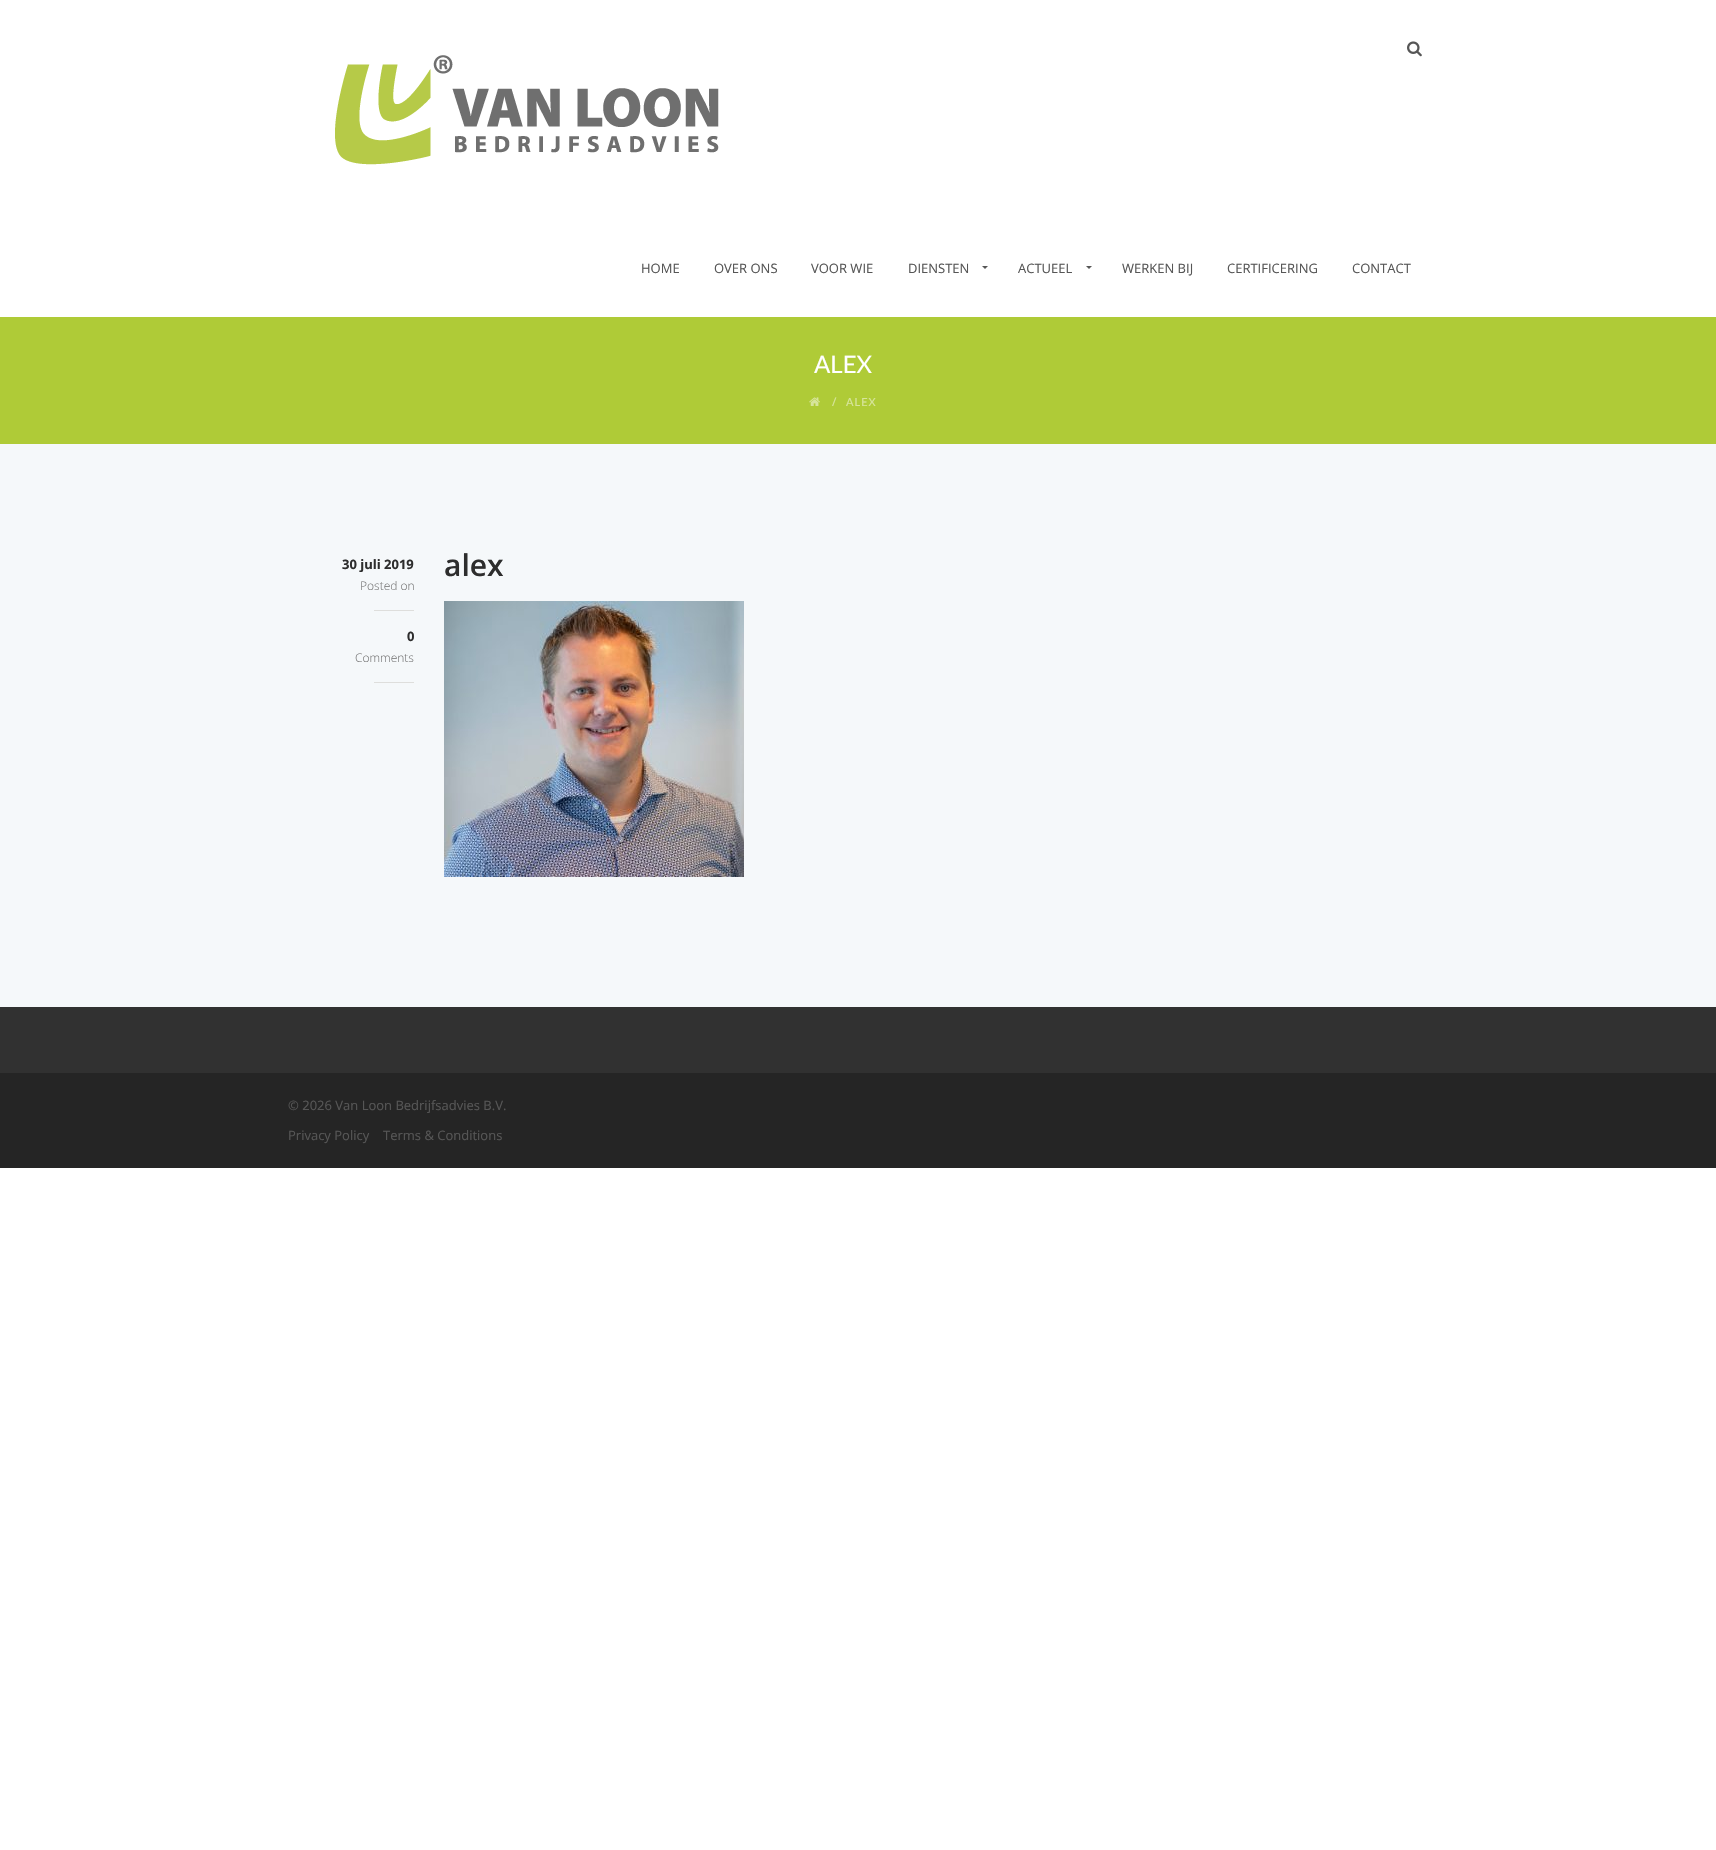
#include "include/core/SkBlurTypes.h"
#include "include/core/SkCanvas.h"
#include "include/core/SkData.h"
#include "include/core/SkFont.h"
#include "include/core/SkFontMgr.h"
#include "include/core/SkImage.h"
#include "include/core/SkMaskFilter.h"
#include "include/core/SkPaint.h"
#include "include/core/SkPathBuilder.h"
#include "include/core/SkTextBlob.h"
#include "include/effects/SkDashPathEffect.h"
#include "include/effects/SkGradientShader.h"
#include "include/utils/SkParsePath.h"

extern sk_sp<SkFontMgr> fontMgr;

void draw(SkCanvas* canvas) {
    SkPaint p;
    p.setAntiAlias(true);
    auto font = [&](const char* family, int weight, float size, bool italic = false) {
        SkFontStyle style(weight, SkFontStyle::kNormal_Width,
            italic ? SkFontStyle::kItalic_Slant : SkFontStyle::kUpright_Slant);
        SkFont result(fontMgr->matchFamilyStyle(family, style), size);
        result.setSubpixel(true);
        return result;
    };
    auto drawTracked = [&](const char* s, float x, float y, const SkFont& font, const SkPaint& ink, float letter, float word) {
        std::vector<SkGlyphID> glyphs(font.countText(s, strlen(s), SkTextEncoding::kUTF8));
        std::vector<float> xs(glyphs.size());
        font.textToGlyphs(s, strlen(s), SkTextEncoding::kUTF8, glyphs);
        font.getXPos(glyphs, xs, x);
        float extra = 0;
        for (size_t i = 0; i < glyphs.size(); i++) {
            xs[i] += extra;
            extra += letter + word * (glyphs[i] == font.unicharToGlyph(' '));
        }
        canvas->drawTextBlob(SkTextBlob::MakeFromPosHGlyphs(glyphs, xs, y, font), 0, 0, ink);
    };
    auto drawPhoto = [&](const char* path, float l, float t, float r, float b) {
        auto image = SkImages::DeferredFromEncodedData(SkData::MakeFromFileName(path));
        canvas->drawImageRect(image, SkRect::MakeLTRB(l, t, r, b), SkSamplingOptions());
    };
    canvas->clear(0xFFFFFFFF);
    drawPhoto("media/1.png", 1407, 41, 1422, 57);
    drawPhoto("media/2.png", 335, 55, 719, 165);
    auto font1 = font("Open Sans", 400, 13);
    p.setColor(0xFF565656);
    {
        const struct { const char* s; float x, y; } items[] = {
            {"HOME", 641, 273},
            {"OVER ONS", 714, 273},
            {"VOOR WIE", 811, 273},
            {"DIENSTEN", 908, 273},
        };
        for (auto [s, x, y] : items) {
            canvas->drawString(s, x, y, font1, p);
        }
    }
    canvas->drawPath(SkPathBuilder().moveTo(982, 266).lineTo(988, 266).lineTo(985, 269).close().detach(), p);
    canvas->drawString("ACTUEEL", 1018, 273, font1, p);
    canvas->drawPath(SkPathBuilder().moveTo(1086, 266).lineTo(1092, 266).lineTo(1089, 269).close().detach(), p);
    {
        const struct { const char* s; float x, y; } items[] = {
            {"WERKEN BIJ", 1122, 273},
            {"CERTIFICERING", 1227, 273},
            {"CONTACT", 1352, 273},
        };
        for (auto [s, x, y] : items) {
            canvas->drawString(s, x, y, font1, p);
        }
    }
    p.setColor(0xFFF5F8FA);
    canvas->drawRect(SkRect::MakeLTRB(0, 444, 1716, 1007), p);
    p.setColor(0xFFAFCB37);
    canvas->drawRect(SkRect::MakeLTRB(0, 317, 1716, 444), p);
    auto font2 = font("Lato", 400, 24);
    p.setColor(0xFFFFFFFF);
    canvas->drawString("ALEX", 814, 373, font2, p);
    drawPhoto("media/3.png", 809, 397, 820, 406);
    auto font3 = font("Open Sans", 400, 12);
    p.setColor(0xFFD7E59B);
    canvas->drawString("/", 832, 406, font3, p);
    auto font4 = font("Lato", 400, 11);
    drawTracked("ALEX", 846, 406, font4, p, 1, 0);
    auto font5 = font("Open Sans", 700, 13);
    p.setColor(0xFF2D2D2D);
    canvas->drawString("30 juli 2019", 342, 569, font5, p);
    auto font6 = font("Open Sans", 300, 12);
    p.setColor(0xFF777777);
    canvas->drawString("Posted on", 360, 590, font6, p);
    p.setColor(0xFFDEDEDC);
    canvas->drawRect(SkRect::MakeLTRB(374, 610, 414, 611), p);
    p.setColor(0xFF2D2D2D);
    canvas->drawString("0", 407, 641, font5, p);
    p.setColor(0xFF777777);
    canvas->drawString("Comments", 355, 662, font6, p);
    p.setColor(0xFFDEDEDC);
    canvas->drawRect(SkRect::MakeLTRB(374, 682, 414, 683), p);
    auto font7 = font("Open Sans", 600, 30);
    p.setColor(0xFF2D2D2D);
    canvas->drawString("alex", 444, 576, font7, p);
    drawPhoto("media/4.png", 444, 601, 744, 877);
    p.setColor(0xFF313131);
    canvas->drawRect(SkRect::MakeLTRB(0, 1007, 1716, 1073), p);
    p.setColor(0xFF252525);
    canvas->drawRect(SkRect::MakeLTRB(0, 1073, 1716, 1168), p);
    p.setColor(0xFF565656);
    {
        const struct { const char* s; float x, y; } items[] = {
            {"© 2026 Van Loon Bedrijfsadvies B.V.", 288, 1110},
            {"Privacy Policy", 288, 1140},
            {"Terms & Conditions", 383, 1140},
        };
        for (auto [s, x, y] : items) {
            canvas->drawString(s, x, y, font1, p);
        }
    }
}
